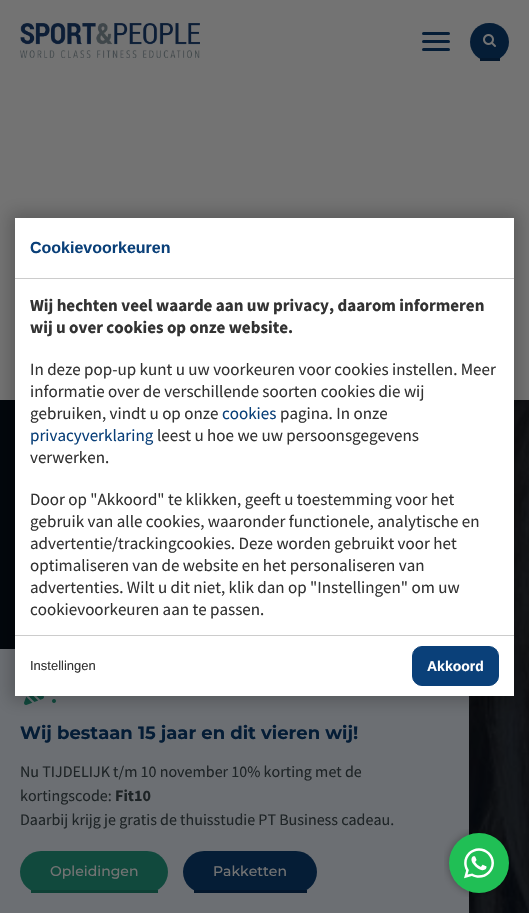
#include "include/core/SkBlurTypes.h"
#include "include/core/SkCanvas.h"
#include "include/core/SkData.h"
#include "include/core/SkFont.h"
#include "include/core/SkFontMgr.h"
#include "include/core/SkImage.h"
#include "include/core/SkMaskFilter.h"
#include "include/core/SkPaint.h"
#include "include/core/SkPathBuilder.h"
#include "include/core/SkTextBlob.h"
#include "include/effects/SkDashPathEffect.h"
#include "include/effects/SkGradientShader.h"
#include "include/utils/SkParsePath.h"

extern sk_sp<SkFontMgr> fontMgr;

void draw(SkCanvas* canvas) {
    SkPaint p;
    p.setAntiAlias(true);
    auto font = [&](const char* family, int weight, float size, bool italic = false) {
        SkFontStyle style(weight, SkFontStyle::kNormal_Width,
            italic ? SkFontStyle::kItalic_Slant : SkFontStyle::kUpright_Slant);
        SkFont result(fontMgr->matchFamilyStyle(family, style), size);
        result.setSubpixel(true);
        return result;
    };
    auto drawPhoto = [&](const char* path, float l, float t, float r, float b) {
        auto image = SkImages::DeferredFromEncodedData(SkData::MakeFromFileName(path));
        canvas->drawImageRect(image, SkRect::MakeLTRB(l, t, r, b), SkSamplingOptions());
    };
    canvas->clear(0xFF737373);
    drawPhoto("media/1.png", 20, 23, 200, 58);
    p.setColor(0xFF051D36);
    canvas->drawRoundRect(SkRect::MakeLTRB(422, 40, 450, 43), 1.5f, 1.5f, p);
    canvas->drawRoundRect(SkRect::MakeLTRB(422, 32, 450, 35), 1.5f, 1.5f, p);
    canvas->drawRoundRect(SkRect::MakeLTRB(422, 48, 450, 51), 1.5f, 1.5f, p);
    canvas->drawRoundRect(SkRect::MakeLTRB(470, 23, 509, 61), 19, 19, p);
    p.setColor(0xFF04172C);
    canvas->drawRect(SkRect::MakeLTRB(480, 58, 500, 61), p);
    drawPhoto("media/2.png", 483, 34, 496, 47);
    drawPhoto("media/3.png", 0, 400, 529, 913);
    p.setColor(0xFF6C6F73);
    canvas->drawRect(SkRect::MakeLTRB(0, 649, 469, 913), p);
    drawPhoto("media/4.png", 24, 696, 56, 705);
    p.setColor(0x33000000);
    p.setMaskFilter(SkMaskFilter::MakeBlur(kNormal_SkBlurStyle, 7.5f));
    canvas->drawRect(SkRect::MakeLTRB(10, 213, 519, 701), p);
    p.setMaskFilter(nullptr);
    p.setColor(0xFFFFFFFF);
    canvas->drawRect(SkRect::MakeLTRB(15, 218, 514, 696), p);
    p.setColor(0xFFCCCCCC);
    canvas->drawRect(SkRect::MakeLTRB(15, 278, 514, 279), p);
    auto font1 = font("Liberation Sans", 700, 16);
    p.setColor(0xFF0A4079);
    canvas->drawString("Cookievoorkeuren", 30, 253, font1, p);
    auto font2 = font("Source Sans Pro", 700, 17);
    p.setColor(0xFF333333);
    canvas->drawString("Wij hechten veel waarde aan uw privacy, daarom informeren", 30, 311, font2, p);
    canvas->drawString("wij u over cookies op onze website.", 30, 333, font2, p);
    auto font3 = font("Source Sans Pro", 400, 17);
    {
        const struct { const char* s; float x, y; } items[] = {
            {"In deze pop-up kunt u uw voorkeuren voor cookies instellen. Meer", 30, 375},
            {"informatie over de verschillende soorten cookies die wij", 30, 397},
            {"gebruiken, vindt u op onze", 30, 419},
        };
        for (auto [s, x, y] : items) {
            canvas->drawString(s, x, y, font3, p);
        }
    }
    p.setColor(0xFF0A4079);
    canvas->drawString("cookies", 222, 419, font3, p);
    p.setColor(0xFF333333);
    canvas->drawString("pagina. In onze", 280, 419, font3, p);
    p.setColor(0xFF0A4079);
    canvas->drawString("privacyverklaring", 30, 441, font3, p);
    p.setColor(0xFF333333);
    {
        const struct { const char* s; float x, y; } items[] = {
            {"leest u hoe we uw persoonsgegevens", 157, 441},
            {"verwerken.", 30, 463},
            {"Door op \"Akkoord\" te klikken, geeft u toestemming voor het", 30, 505},
            {"gebruik van alle cookies, waaronder functionele, analytische en", 30, 527},
            {"advertentie/trackingcookies. Deze worden gebruikt voor het", 30, 549},
            {"optimaliseren van de website en het personaliseren van", 30, 571},
            {"advertenties. Wilt u dit niet, klik dan op \"Instellingen\" om uw", 30, 593},
            {"cookievoorkeuren aan te passen.", 30, 615},
        };
        for (auto [s, x, y] : items) {
            canvas->drawString(s, x, y, font3, p);
        }
    }
    p.setColor(0xFFCCCCCC);
    canvas->drawRect(SkRect::MakeLTRB(15, 635, 514, 636), p);
    auto font4 = font("Liberation Sans", 400, 13);
    p.setColor(0xFF333333);
    canvas->drawString("Instellingen", 30, 670, font4, p);
    p.setColor(0xFF0A4079);
    canvas->drawRoundRect(SkRect::MakeLTRB(412.5f, 646.5f, 498.5f, 685.5f), 9.5f, 9.5f, p);
    p.setStyle(SkPaint::kStroke_Style);
    p.setStrokeWidth(1);
    canvas->drawRoundRect(SkRect::MakeLTRB(412.5f, 646.5f, 498.5f, 685.5f), 9.5f, 9.5f, p);
    auto font5 = font("Liberation Sans", 700, 14);
    p.setStyle(SkPaint::kFill_Style);
    p.setColor(0xFFFFFFFF);
    canvas->drawString("Akkoord", 427, 671, font5, p);
    auto font6 = font("Montserrat", 700, 18);
    p.setColor(0xFF051D36);
    canvas->drawString("Wij bestaan 15 jaar en dit vieren wij!", 20, 739, font6, p);
    auto font7 = font("Source Sans Pro", 400, 16);
    p.setColor(0xFF1E2426);
    canvas->drawString("Nu TIJDELIJK t/m 10 november 10% korting met de", 20, 777, font7, p);
    canvas->drawString("kortingscode:", 20, 801, font7, p);
    auto font8 = font("Source Sans Pro", 700, 16);
    canvas->drawString("Fit10", 115, 801, font8, p);
    canvas->drawString("Daarbij krijg je gratis de thuisstudie PT Business cadeau.", 20, 825, font7, p);
    p.setColor(0xFF11493D);
    canvas->drawRoundRect(SkRect::MakeLTRB(20, 851, 168, 893), 21, 21, p);
    p.setColor(0xFF0F4035);
    canvas->drawRect(SkRect::MakeLTRB(31, 890, 158, 893), p);
    auto font9 = font("Montserrat", 500, 14);
    p.setColor(0xFF737373);
    canvas->drawString("Opleidingen", 50, 876, font9, p);
    p.setColor(0xFF051D36);
    canvas->drawRoundRect(SkRect::MakeLTRB(183, 851, 317, 893), 21, 21, p);
    p.setColor(0xFF04172C);
    canvas->drawRect(SkRect::MakeLTRB(194, 890, 307, 893), p);
    p.setColor(0xFF737373);
    canvas->drawString("Pakketten", 213, 876, font9, p);
    drawPhoto("media/5.png", 444, 829, 509, 897);
}
